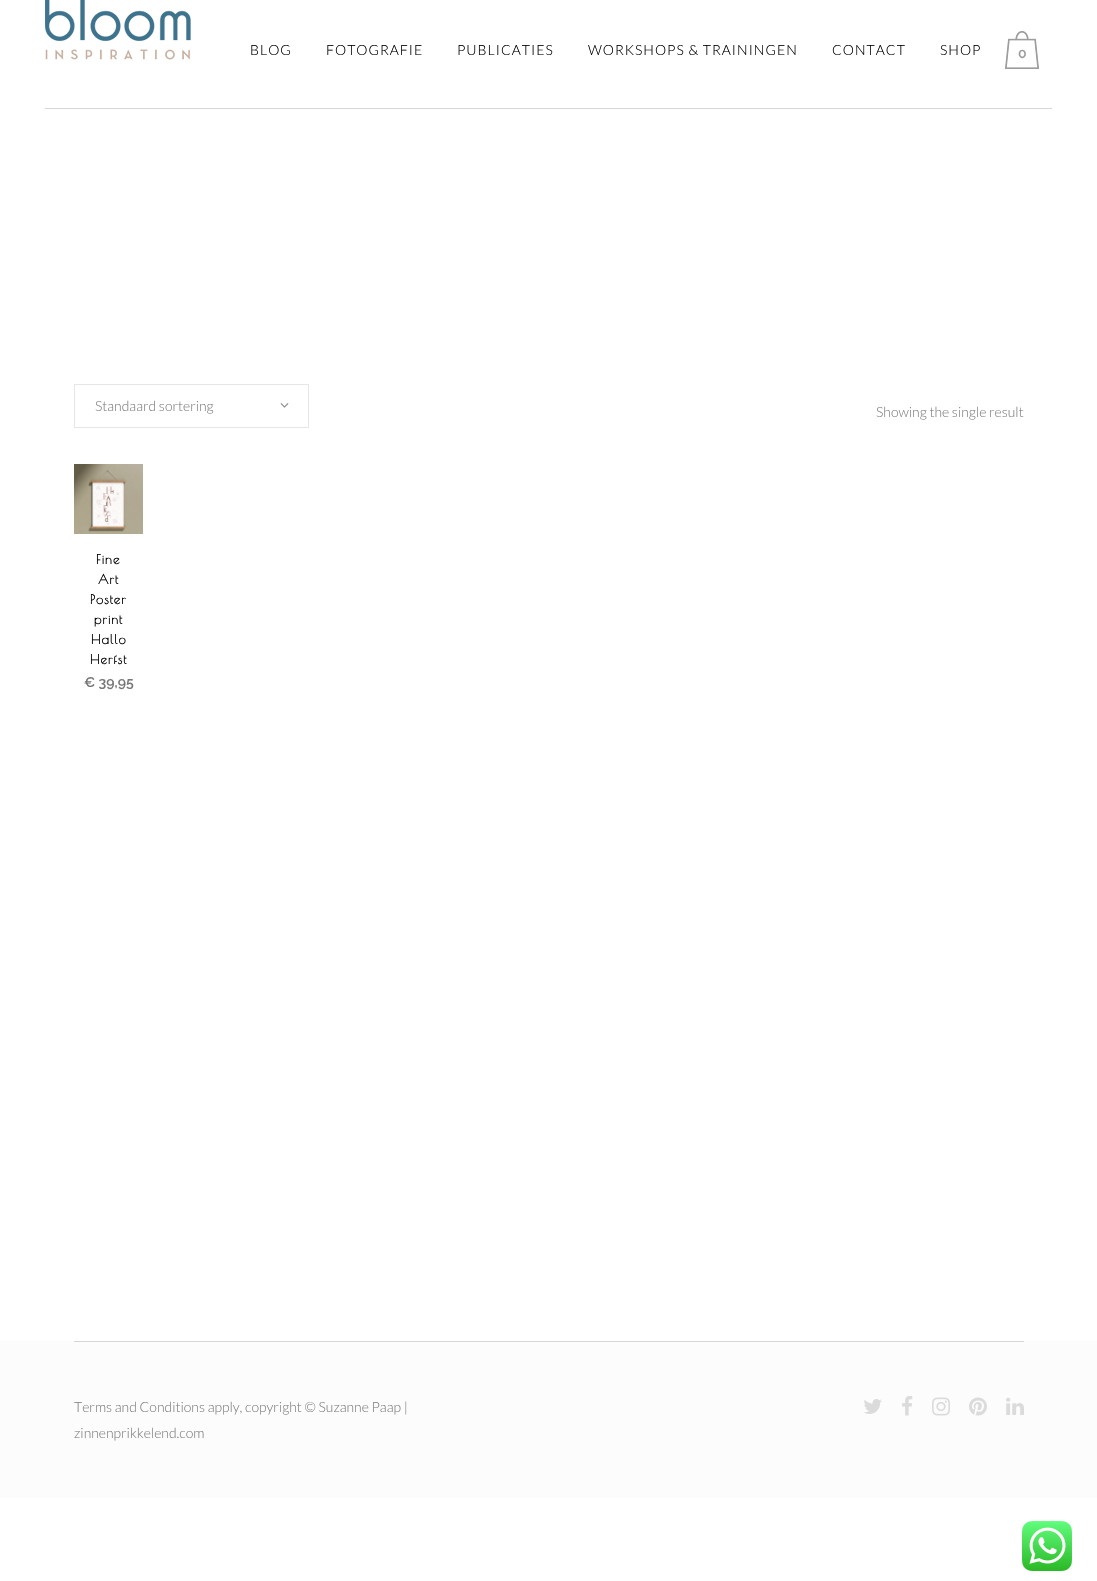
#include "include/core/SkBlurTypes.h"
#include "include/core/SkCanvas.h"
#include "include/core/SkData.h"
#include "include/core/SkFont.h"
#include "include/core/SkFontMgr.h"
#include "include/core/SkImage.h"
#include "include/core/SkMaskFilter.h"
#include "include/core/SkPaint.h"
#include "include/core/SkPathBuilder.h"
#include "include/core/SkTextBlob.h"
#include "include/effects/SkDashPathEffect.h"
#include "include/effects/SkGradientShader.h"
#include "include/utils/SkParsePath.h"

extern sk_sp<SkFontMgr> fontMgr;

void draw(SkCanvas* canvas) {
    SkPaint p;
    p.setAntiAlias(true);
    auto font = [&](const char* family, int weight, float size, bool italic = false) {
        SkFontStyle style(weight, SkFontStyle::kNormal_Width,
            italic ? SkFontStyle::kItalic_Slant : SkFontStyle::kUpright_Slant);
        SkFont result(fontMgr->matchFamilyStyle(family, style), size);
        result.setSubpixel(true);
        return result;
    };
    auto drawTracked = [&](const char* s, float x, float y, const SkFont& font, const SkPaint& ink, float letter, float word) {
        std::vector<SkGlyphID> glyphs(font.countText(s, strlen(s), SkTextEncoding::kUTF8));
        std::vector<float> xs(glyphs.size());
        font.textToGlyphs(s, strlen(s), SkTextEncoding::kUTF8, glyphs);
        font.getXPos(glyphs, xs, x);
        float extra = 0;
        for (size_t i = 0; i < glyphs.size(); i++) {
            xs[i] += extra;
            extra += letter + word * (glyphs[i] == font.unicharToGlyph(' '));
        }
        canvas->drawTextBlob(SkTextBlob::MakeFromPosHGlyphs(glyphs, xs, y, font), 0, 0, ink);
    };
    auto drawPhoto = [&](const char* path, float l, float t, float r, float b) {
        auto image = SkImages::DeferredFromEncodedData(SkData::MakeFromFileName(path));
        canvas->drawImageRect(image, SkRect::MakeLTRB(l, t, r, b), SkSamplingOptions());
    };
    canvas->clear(0xFFFFFFFF);
    p.setColor(0xFFFCFCFC);
    canvas->drawRect(SkRect::MakeLTRB(0, 1341, 1097, 1498), p);
    p.setColor(0xFFD6D6D6);
    canvas->drawRect(SkRect::MakeLTRB(45, 108, 1052, 109), p);
    drawPhoto("media/1.png", 45, 0, 191, 60);
    auto font1 = font("Lato", 300, 14);
    p.setColor(0xFF000000);
    {
        const struct { const char* s; float x, y; } items[] = {
            {"BLOG", 250, 55},
            {"FOTOGRAFIE", 326, 55},
            {"PUBLICATIES", 457, 55},
            {"WORKSHOPS & TRAININGEN", 588, 55},
            {"CONTACT", 832, 55},
            {"SHOP", 940, 55},
        };
        for (auto [s, x, y] : items) {
            drawTracked(s, x, y, font1, p, 1, 0);
        }
    }
    drawPhoto("media/2.png", 1005, 31, 1039, 69);
    auto font2 = font("Raleway", 600, 14);
    p.setColor(0xFF9D9D9D);
    canvas->drawString("0", 1018, 58, font2, p);
    p.setStyle(SkPaint::kStroke_Style);
    p.setStrokeWidth(1);
    p.setColor(0xFFE6E6E6);
    canvas->drawRect(SkRect::MakeLTRB(74.5f, 384.5f, 308.5f, 427.5f), p);
    p.setStyle(SkPaint::kFill_Style);
    p.setColor(0xFF818181);
    canvas->drawString("Standaard sortering", 95, 411, font1, p);
    drawPhoto("media/3.png", 280, 403, 289, 408);
    canvas->drawString("Showing the single result", 876, 417, font1, p);
    drawPhoto("media/4.png", 74, 464, 143, 534);
    auto font3 = font("Poiret One", 700, 13);
    p.setColor(0xFF000000);
    {
        const struct { const char* s; float x, y; } items[] = {
            {"Fine", 96, 564},
            {"Art", 98, 584},
            {"Poster", 90, 604},
            {"print", 94, 624},
            {"Hallo", 91, 644},
            {"Herfst", 90, 664},
        };
        for (auto [s, x, y] : items) {
            drawTracked(s, x, y, font3, p, 1, 0);
        }
    }
    p.setColor(0xFF777777);
    canvas->drawString("€ 39,95", 84, 687, font2, p);
    p.setColor(0xFFD6D6D6);
    canvas->drawRect(SkRect::MakeLTRB(74, 1341, 1024, 1342), p);
    p.setColor(0xFF818181);
    canvas->drawString("Terms and Conditions apply, copyright © Suzanne Paap |", 74, 1412, font1, p);
    canvas->drawString("zinnenprikkelend.com", 74, 1438, font1, p);
    drawPhoto("media/5.png", 864, 1399, 882, 1414);
    drawPhoto("media/6.png", 902, 1396, 913, 1416);
    drawPhoto("media/7.png", 932, 1397, 950, 1416);
    drawPhoto("media/8.png", 969, 1397, 987, 1416);
    drawPhoto("media/9.png", 1006, 1397, 1024, 1415);
    drawPhoto("media/10.png", 1022, 1521, 1072, 1571);
}
